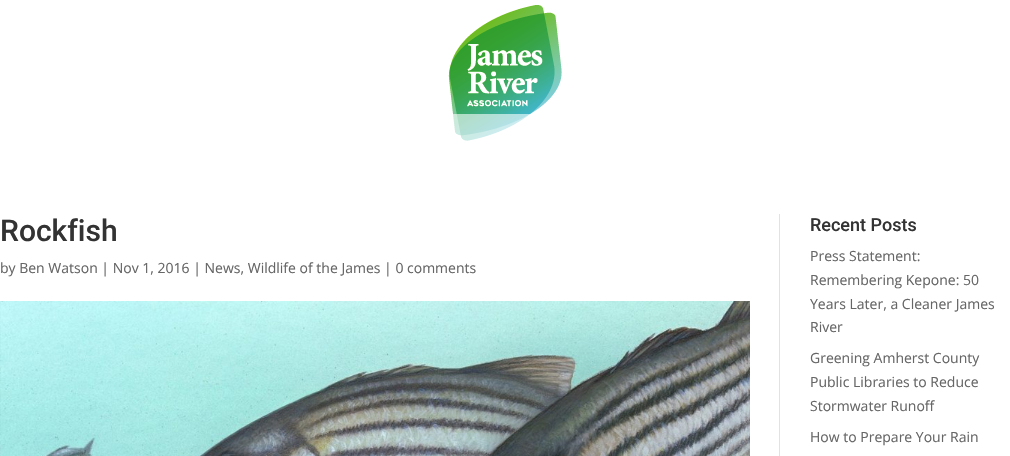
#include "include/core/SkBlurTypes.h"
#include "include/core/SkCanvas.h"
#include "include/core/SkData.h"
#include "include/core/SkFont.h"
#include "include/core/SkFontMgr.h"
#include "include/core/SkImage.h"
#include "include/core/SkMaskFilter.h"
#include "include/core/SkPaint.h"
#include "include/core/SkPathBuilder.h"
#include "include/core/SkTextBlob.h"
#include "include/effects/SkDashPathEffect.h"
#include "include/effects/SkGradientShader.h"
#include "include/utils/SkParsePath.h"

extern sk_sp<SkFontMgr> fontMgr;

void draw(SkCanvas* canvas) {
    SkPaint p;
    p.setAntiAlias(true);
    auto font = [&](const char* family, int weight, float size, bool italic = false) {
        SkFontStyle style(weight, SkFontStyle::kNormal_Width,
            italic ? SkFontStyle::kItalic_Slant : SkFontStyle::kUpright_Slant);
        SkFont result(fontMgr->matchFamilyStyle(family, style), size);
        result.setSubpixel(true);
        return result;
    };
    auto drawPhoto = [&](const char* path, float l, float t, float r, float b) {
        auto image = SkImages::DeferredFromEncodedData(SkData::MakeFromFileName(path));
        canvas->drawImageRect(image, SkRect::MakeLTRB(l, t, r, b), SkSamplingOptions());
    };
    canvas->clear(0xFFFFFFFF);
    drawPhoto("media/1.png", 448, 5, 562, 141);
    p.setColor(0x99FFFFFF);
    canvas->drawRect(SkRect::MakeLTRB(453, 114, 530, 141), p);
    p.setColor(0xFFE2E2E2);
    canvas->drawRect(SkRect::MakeLTRB(779, 214, 780, 456), p);
    auto font1 = font("Roboto", 500, 30);
    p.setColor(0xFF333333);
    canvas->drawString("Rockfish", 0, 241, font1, p);
    auto font2 = font("Open Sans", 400, 14);
    p.setColor(0xFF666666);
    canvas->drawString("by Ben Watson | Nov 1, 2016 | News, Wildlife of the James | 0 comments", 0, 273, font2, p);
    drawPhoto("media/2.png", 0, 301, 750, 456);
    auto font3 = font("Roboto", 500, 18);
    p.setColor(0xFF333333);
    canvas->drawString("Recent Posts", 810, 231, font3, p);
    p.setColor(0xFF666666);
    {
        const struct { const char* s; float x, y; } items[] = {
            {"Press Statement:", 810, 261},
            {"Remembering Kepone: 50", 810, 285},
            {"Years Later, a Cleaner James", 810, 309},
            {"River", 810, 332},
            {"Greening Amherst County", 810, 363},
            {"Public Libraries to Reduce", 810, 387},
            {"Stormwater Runoff", 810, 411},
            {"How to Prepare Your Rain", 810, 442},
        };
        for (auto [s, x, y] : items) {
            canvas->drawString(s, x, y, font2, p);
        }
    }
}
